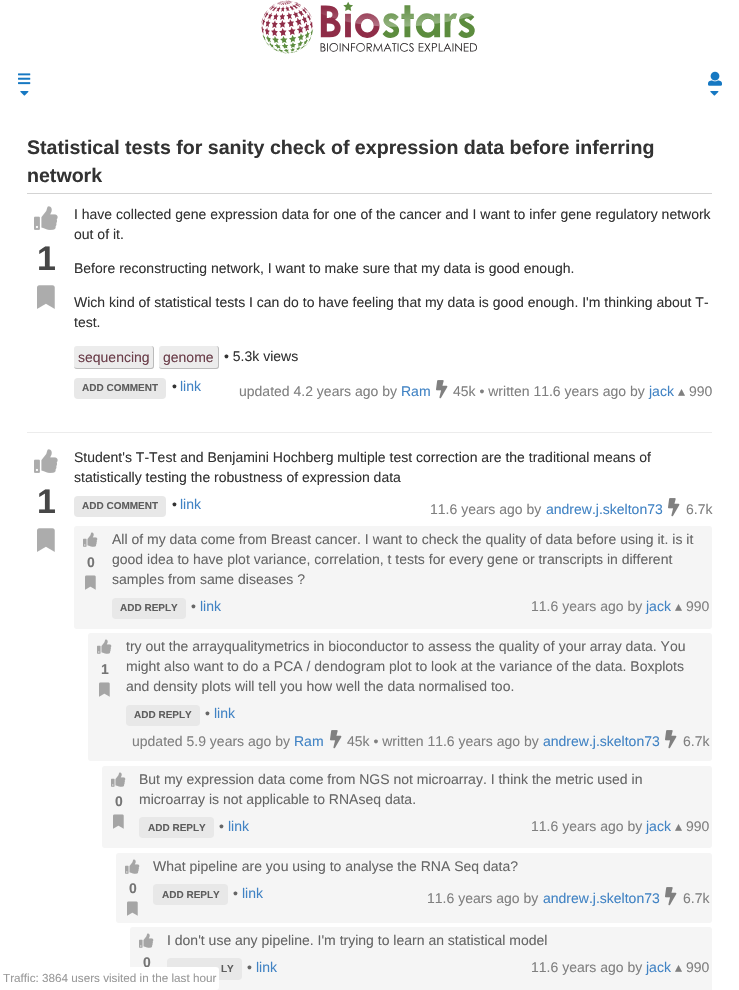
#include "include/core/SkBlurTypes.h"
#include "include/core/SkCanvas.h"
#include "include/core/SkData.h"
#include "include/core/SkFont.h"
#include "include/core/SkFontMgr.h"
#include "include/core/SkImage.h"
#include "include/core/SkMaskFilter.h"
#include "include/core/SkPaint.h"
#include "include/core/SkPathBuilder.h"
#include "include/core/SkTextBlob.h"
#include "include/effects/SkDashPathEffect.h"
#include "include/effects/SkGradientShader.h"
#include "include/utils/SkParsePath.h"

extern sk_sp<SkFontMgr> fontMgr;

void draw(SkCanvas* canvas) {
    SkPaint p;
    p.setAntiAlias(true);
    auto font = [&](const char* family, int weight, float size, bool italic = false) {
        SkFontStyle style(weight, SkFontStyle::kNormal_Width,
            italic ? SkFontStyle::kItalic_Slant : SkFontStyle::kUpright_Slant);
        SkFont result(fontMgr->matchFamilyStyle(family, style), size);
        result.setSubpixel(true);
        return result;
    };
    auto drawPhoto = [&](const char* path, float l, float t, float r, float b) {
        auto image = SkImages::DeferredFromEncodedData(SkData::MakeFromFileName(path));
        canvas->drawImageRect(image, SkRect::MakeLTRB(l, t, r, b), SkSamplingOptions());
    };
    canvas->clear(0xFFFFFFFF);
    drawPhoto("media/1.png", 261, 0, 477, 54);
    drawPhoto("media/2.png", 18, 73, 31, 85);
    drawPhoto("media/3.png", 20, 91, 29, 96);
    drawPhoto("media/4.png", 708, 71, 722, 86);
    drawPhoto("media/3.png", 710, 91, 719, 96);
    p.setColor(0xFFECECEC);
    canvas->drawRect(SkRect::MakeLTRB(27, 432, 712, 433), p);
    p.setColor(0xFFD3D3D3);
    canvas->drawRect(SkRect::MakeLTRB(27, 193, 712, 194), p);
    auto font1 = font("Liberation Sans", 700, 19.6f);
    p.setColor(0xFF333333);
    canvas->drawString("Statistical tests for sanity check of expression data before inferring", 27, 154, font1, p);
    canvas->drawString("network", 27, 182, font1, p);
    drawPhoto("media/5.png", 34, 206, 58, 230);
    auto font2 = font("Liberation Sans", 700, 34);
    p.setColor(0xFF474747);
    canvas->drawString("1", 37, 270, font2, p);
    drawPhoto("media/6.png", 37, 285, 55, 309);
    auto font3 = font("Liberation Sans", 400, 14);
    p.setColor(0xFF333333);
    {
        const struct { const char* s; float x, y; } items[] = {
            {"I have collected gene expression data for one of the cancer and I want to infer gene regulatory network", 74, 219},
            {"out of it.", 74, 239},
            {"Before reconstructing network, I want to make sure that my data is good enough.", 74, 273},
            {"Wich kind of statistical tests I can do to have feeling that my data is good enough. I'm thinking about T-", 74, 307},
            {"test.", 74, 327},
        };
        for (auto [s, x, y] : items) {
            canvas->drawString(s, x, y, font3, p);
        }
    }
    p.setColor(0xFFECECEC);
    canvas->drawRoundRect(SkRect::MakeLTRB(74, 346, 154, 369), 3, 3, p);
    p.setColor(0xFFBBBBBB);
    canvas->drawPath(SkPathBuilder(SkPathFillType::kEvenOdd).moveTo(77, 346).lineTo(151, 346).cubicTo(153, 346, 154, 347, 154, 349).lineTo(154, 366).cubicTo(154, 368, 153, 369, 151, 369).lineTo(77, 369).cubicTo(75, 369, 74, 368, 74, 366).lineTo(74, 349).cubicTo(74, 347, 75, 346, 77, 346).close().moveTo(77, 346).lineTo(151, 346).cubicTo(152, 346, 153, 347, 153, 349).lineTo(153, 366).cubicTo(153, 367, 152, 368, 151, 368).lineTo(77, 368).cubicTo(75, 368, 74, 367, 74, 366).lineTo(74, 349).cubicTo(74, 347, 75, 346, 77, 346).close().detach(), p);
    p.setColor(0xFF6B3E4A);
    canvas->drawString("sequencing", 78, 362, font3, p);
    p.setColor(0xFFECECEC);
    canvas->drawRoundRect(SkRect::MakeLTRB(159, 346, 219, 369), 3, 3, p);
    p.setColor(0xFFBBBBBB);
    canvas->drawPath(SkPathBuilder(SkPathFillType::kEvenOdd).moveTo(162, 346).lineTo(216, 346).cubicTo(218, 346, 219, 347, 219, 349).lineTo(219, 366).cubicTo(219, 368, 218, 369, 216, 369).lineTo(162, 369).cubicTo(160, 369, 159, 368, 159, 366).lineTo(159, 349).cubicTo(159, 347, 160, 346, 162, 346).close().moveTo(162, 346).lineTo(216, 346).cubicTo(217, 346, 218, 347, 218, 349).lineTo(218, 366).cubicTo(218, 367, 217, 368, 216, 368).lineTo(162, 368).cubicTo(160, 368, 159, 367, 159, 366).lineTo(159, 349).cubicTo(159, 347, 160, 346, 162, 346).close().detach(), p);
    p.setColor(0xFF6B3E4A);
    canvas->drawString("genome", 163, 362, font3, p);
    p.setColor(0xFF333333);
    canvas->drawString("• 5.3k views", 224, 361, font3, p);
    p.setColor(0xFFE8E8E8);
    canvas->drawRoundRect(SkRect::MakeLTRB(74, 378, 166, 399), 4, 4, p);
    auto font4 = font("Liberation Sans", 700, 10);
    p.setColor(0xFF5D5D5D);
    canvas->drawString("ADD COMMENT", 82, 391, font4, p);
    p.setColor(0xFF333333);
    canvas->drawString("•", 172, 391, font3, p);
    p.setColor(0xFF4183C4);
    canvas->drawString("link", 180, 391, font3, p);
    p.setColor(0xFF808080);
    canvas->drawString("updated 4.2 years ago by", 239, 396, font3, p);
    p.setColor(0xFF4183C4);
    canvas->drawString("Ram", 401, 396, font3, p);
    drawPhoto("media/7.png", 436, 380, 448, 399);
    p.setColor(0xFF808080);
    canvas->drawString("45k • written 11.6 years ago by", 453, 396, font3, p);
    p.setColor(0xFF4183C4);
    canvas->drawString("jack", 649, 396, font3, p);
    auto font5 = font("DejaVu Sans", 400, 14);
    p.setColor(0xFF808080);
    canvas->drawString("▴", 678, 396, font5, p);
    canvas->drawString("990", 689, 396, font3, p);
    drawPhoto("media/5.png", 34, 449, 58, 473);
    p.setColor(0xFF474747);
    canvas->drawString("1", 37, 513, font2, p);
    drawPhoto("media/6.png", 37, 528, 55, 552);
    p.setColor(0xFF333333);
    canvas->drawString("Student's T-Test and Benjamini Hochberg multiple test correction are the traditional means of", 74, 462, font3, p);
    canvas->drawString("statistically testing the robustness of expression data", 74, 482, font3, p);
    p.setColor(0xFFE8E8E8);
    canvas->drawRoundRect(SkRect::MakeLTRB(74, 496, 166, 517), 4, 4, p);
    p.setColor(0xFF5D5D5D);
    canvas->drawString("ADD COMMENT", 82, 509, font4, p);
    p.setColor(0xFF333333);
    canvas->drawString("•", 172, 509, font3, p);
    p.setColor(0xFF4183C4);
    canvas->drawString("link", 180, 509, font3, p);
    p.setColor(0xFF808080);
    canvas->drawString("11.6 years ago by", 430, 514, font3, p);
    p.setColor(0xFF4183C4);
    canvas->drawString("andrew.j.skelton73", 546, 514, font3, p);
    drawPhoto("media/7.png", 668, 498, 680, 517);
    p.setColor(0xFF808080);
    canvas->drawString("6.7k", 686, 514, font3, p);
    p.setColor(0xFFF5F5F5);
    canvas->drawRoundRect(SkRect::MakeLTRB(74, 526, 712, 629), 3, 3, p);
    drawPhoto("media/8.png", 83, 532, 98, 547);
    auto font6 = font("Liberation Sans", 700, 14);
    p.setColor(0xFF747474);
    canvas->drawString("0", 87, 567, font6, p);
    drawPhoto("media/9.png", 85, 575, 96, 590);
    p.setColor(0xFF666666);
    {
        const struct { const char* s; float x, y; } items[] = {
            {"All of my data come from Breast cancer. I want to check the quality of data before using it. is it", 112, 544},
            {"good idea to have plot variance, correlation, t tests for every gene or transcripts in different", 112, 564},
            {"samples from same diseases ?", 112, 584},
        };
        for (auto [s, x, y] : items) {
            canvas->drawString(s, x, y, font3, p);
        }
    }
    p.setColor(0xFFE8E8E8);
    canvas->drawRoundRect(SkRect::MakeLTRB(112, 598, 186, 619), 4, 4, p);
    p.setColor(0xFF5D5D5D);
    canvas->drawString("ADD REPLY", 120, 611, font4, p);
    p.setColor(0xFF666666);
    canvas->drawString("•", 191, 611, font3, p);
    p.setColor(0xFF4183C4);
    canvas->drawString("link", 200, 611, font3, p);
    p.setColor(0xFF808080);
    canvas->drawString("11.6 years ago by", 531, 611, font3, p);
    p.setColor(0xFF4183C4);
    canvas->drawString("jack", 646, 611, font3, p);
    p.setColor(0xFF808080);
    canvas->drawString("▴", 675, 611, font5, p);
    canvas->drawString("990", 686, 611, font3, p);
    p.setColor(0xFFF5F5F5);
    canvas->drawRoundRect(SkRect::MakeLTRB(88, 633, 712, 761), 3, 3, p);
    drawPhoto("media/8.png", 97, 639, 112, 654);
    p.setColor(0xFF747474);
    canvas->drawString("1", 101, 674, font6, p);
    drawPhoto("media/9.png", 99, 682, 110, 697);
    p.setColor(0xFF666666);
    {
        const struct { const char* s; float x, y; } items[] = {
            {"try out the arrayqualitymetrics in bioconductor to assess the quality of your array data. You", 126, 651},
            {"might also want to do a PCA / dendogram plot to look at the variance of the data. Boxplots", 126, 671},
            {"and density plots will tell you how well the data normalised too.", 126, 691},
        };
        for (auto [s, x, y] : items) {
            canvas->drawString(s, x, y, font3, p);
        }
    }
    p.setColor(0xFFE8E8E8);
    canvas->drawRoundRect(SkRect::MakeLTRB(126, 705, 200, 726), 4, 4, p);
    p.setColor(0xFF5D5D5D);
    canvas->drawString("ADD REPLY", 134, 718, font4, p);
    p.setColor(0xFF666666);
    canvas->drawString("•", 205, 718, font3, p);
    p.setColor(0xFF4183C4);
    canvas->drawString("link", 214, 718, font3, p);
    p.setColor(0xFF808080);
    canvas->drawString("updated 5.9 years ago by", 132, 746, font3, p);
    p.setColor(0xFF4183C4);
    canvas->drawString("Ram", 294, 746, font3, p);
    drawPhoto("media/10.png", 330, 730, 342, 749);
    p.setColor(0xFF808080);
    canvas->drawString("45k • written 11.6 years ago by", 347, 746, font3, p);
    p.setColor(0xFF4183C4);
    canvas->drawString("andrew.j.skelton73", 543, 746, font3, p);
    drawPhoto("media/10.png", 665, 730, 677, 749);
    p.setColor(0xFF808080);
    canvas->drawString("6.7k", 683, 746, font3, p);
    p.setColor(0xFFF5F5F5);
    canvas->drawRoundRect(SkRect::MakeLTRB(102, 766, 712, 848), 3, 3, p);
    drawPhoto("media/8.png", 111, 772, 126, 787);
    p.setColor(0xFF747474);
    canvas->drawString("0", 115, 806, font6, p);
    drawPhoto("media/9.png", 113, 814, 124, 829);
    p.setColor(0xFF666666);
    canvas->drawString("But my expression data come from NGS not microarray. I think the metric used in", 139, 784, font3, p);
    canvas->drawString("microarray is not applicable to RNAseq data.", 139, 804, font3, p);
    p.setColor(0xFFE8E8E8);
    canvas->drawRoundRect(SkRect::MakeLTRB(139, 817, 214, 838), 4, 4, p);
    p.setColor(0xFF5D5D5D);
    canvas->drawString("ADD REPLY", 148, 831, font4, p);
    p.setColor(0xFF666666);
    canvas->drawString("•", 219, 831, font3, p);
    p.setColor(0xFF4183C4);
    canvas->drawString("link", 228, 831, font3, p);
    p.setColor(0xFF808080);
    canvas->drawString("11.6 years ago by", 531, 831, font3, p);
    p.setColor(0xFF4183C4);
    canvas->drawString("jack", 646, 831, font3, p);
    p.setColor(0xFF808080);
    canvas->drawString("▴", 675, 831, font5, p);
    canvas->drawString("990", 686, 831, font3, p);
    p.setColor(0xFFF5F5F5);
    canvas->drawRoundRect(SkRect::MakeLTRB(116, 853, 712, 923), 3, 3, p);
    drawPhoto("media/8.png", 125, 859, 140, 874);
    p.setColor(0xFF747474);
    canvas->drawString("0", 129, 893, font6, p);
    drawPhoto("media/9.png", 127, 901, 138, 916);
    p.setColor(0xFF666666);
    canvas->drawString("What pipeline are you using to analyse the RNA Seq data?", 153, 871, font3, p);
    p.setColor(0xFFE8E8E8);
    canvas->drawRoundRect(SkRect::MakeLTRB(153, 884, 228, 905), 4, 4, p);
    p.setColor(0xFF5D5D5D);
    canvas->drawString("ADD REPLY", 162, 898, font4, p);
    p.setColor(0xFF666666);
    canvas->drawString("•", 233, 898, font3, p);
    p.setColor(0xFF4183C4);
    canvas->drawString("link", 242, 898, font3, p);
    p.setColor(0xFF808080);
    canvas->drawString("11.6 years ago by", 427, 903, font3, p);
    p.setColor(0xFF4183C4);
    canvas->drawString("andrew.j.skelton73", 543, 903, font3, p);
    drawPhoto("media/10.png", 665, 887, 677, 906);
    p.setColor(0xFF808080);
    canvas->drawString("6.7k", 683, 903, font3, p);
    p.setColor(0xFFF5F5F5);
    canvas->drawRoundRect(SkRect::MakeLTRB(130, 927, 712, 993), 3, 3, p);
    drawPhoto("media/8.png", 139, 933, 154, 948);
    p.setColor(0xFF747474);
    canvas->drawString("0", 143, 967, font6, p);
    p.setColor(0xFF666666);
    canvas->drawString("I don't use any pipeline. I'm trying to learn an statistical model", 167, 945, font3, p);
    p.setColor(0xFFE8E8E8);
    canvas->drawRoundRect(SkRect::MakeLTRB(167, 958, 242, 980), 4, 4, p);
    p.setColor(0xFF5D5D5D);
    canvas->drawString("LY", 221, 972, font4, p);
    p.setColor(0xFF666666);
    canvas->drawString("•", 247, 972, font3, p);
    p.setColor(0xFF4183C4);
    canvas->drawString("link", 256, 972, font3, p);
    p.setColor(0xFF808080);
    canvas->drawString("11.6 years ago by", 531, 972, font3, p);
    p.setColor(0xFF4183C4);
    canvas->drawString("jack", 646, 972, font3, p);
    p.setColor(0xFF808080);
    canvas->drawString("▴", 675, 972, font5, p);
    canvas->drawString("990", 686, 972, font3, p);
    p.setColor(0xFFFFFFFF);
    canvas->drawRoundRect(SkRect::MakeLTRB(0, 967, 219, 990), 3, 3, p);
    auto font7 = font("Liberation Sans", 400, 11.7f);
    p.setColor(0xFF999999);
    canvas->drawString("Traffic: 3864 users visited in the last hour", 3, 982, font7, p);
}
